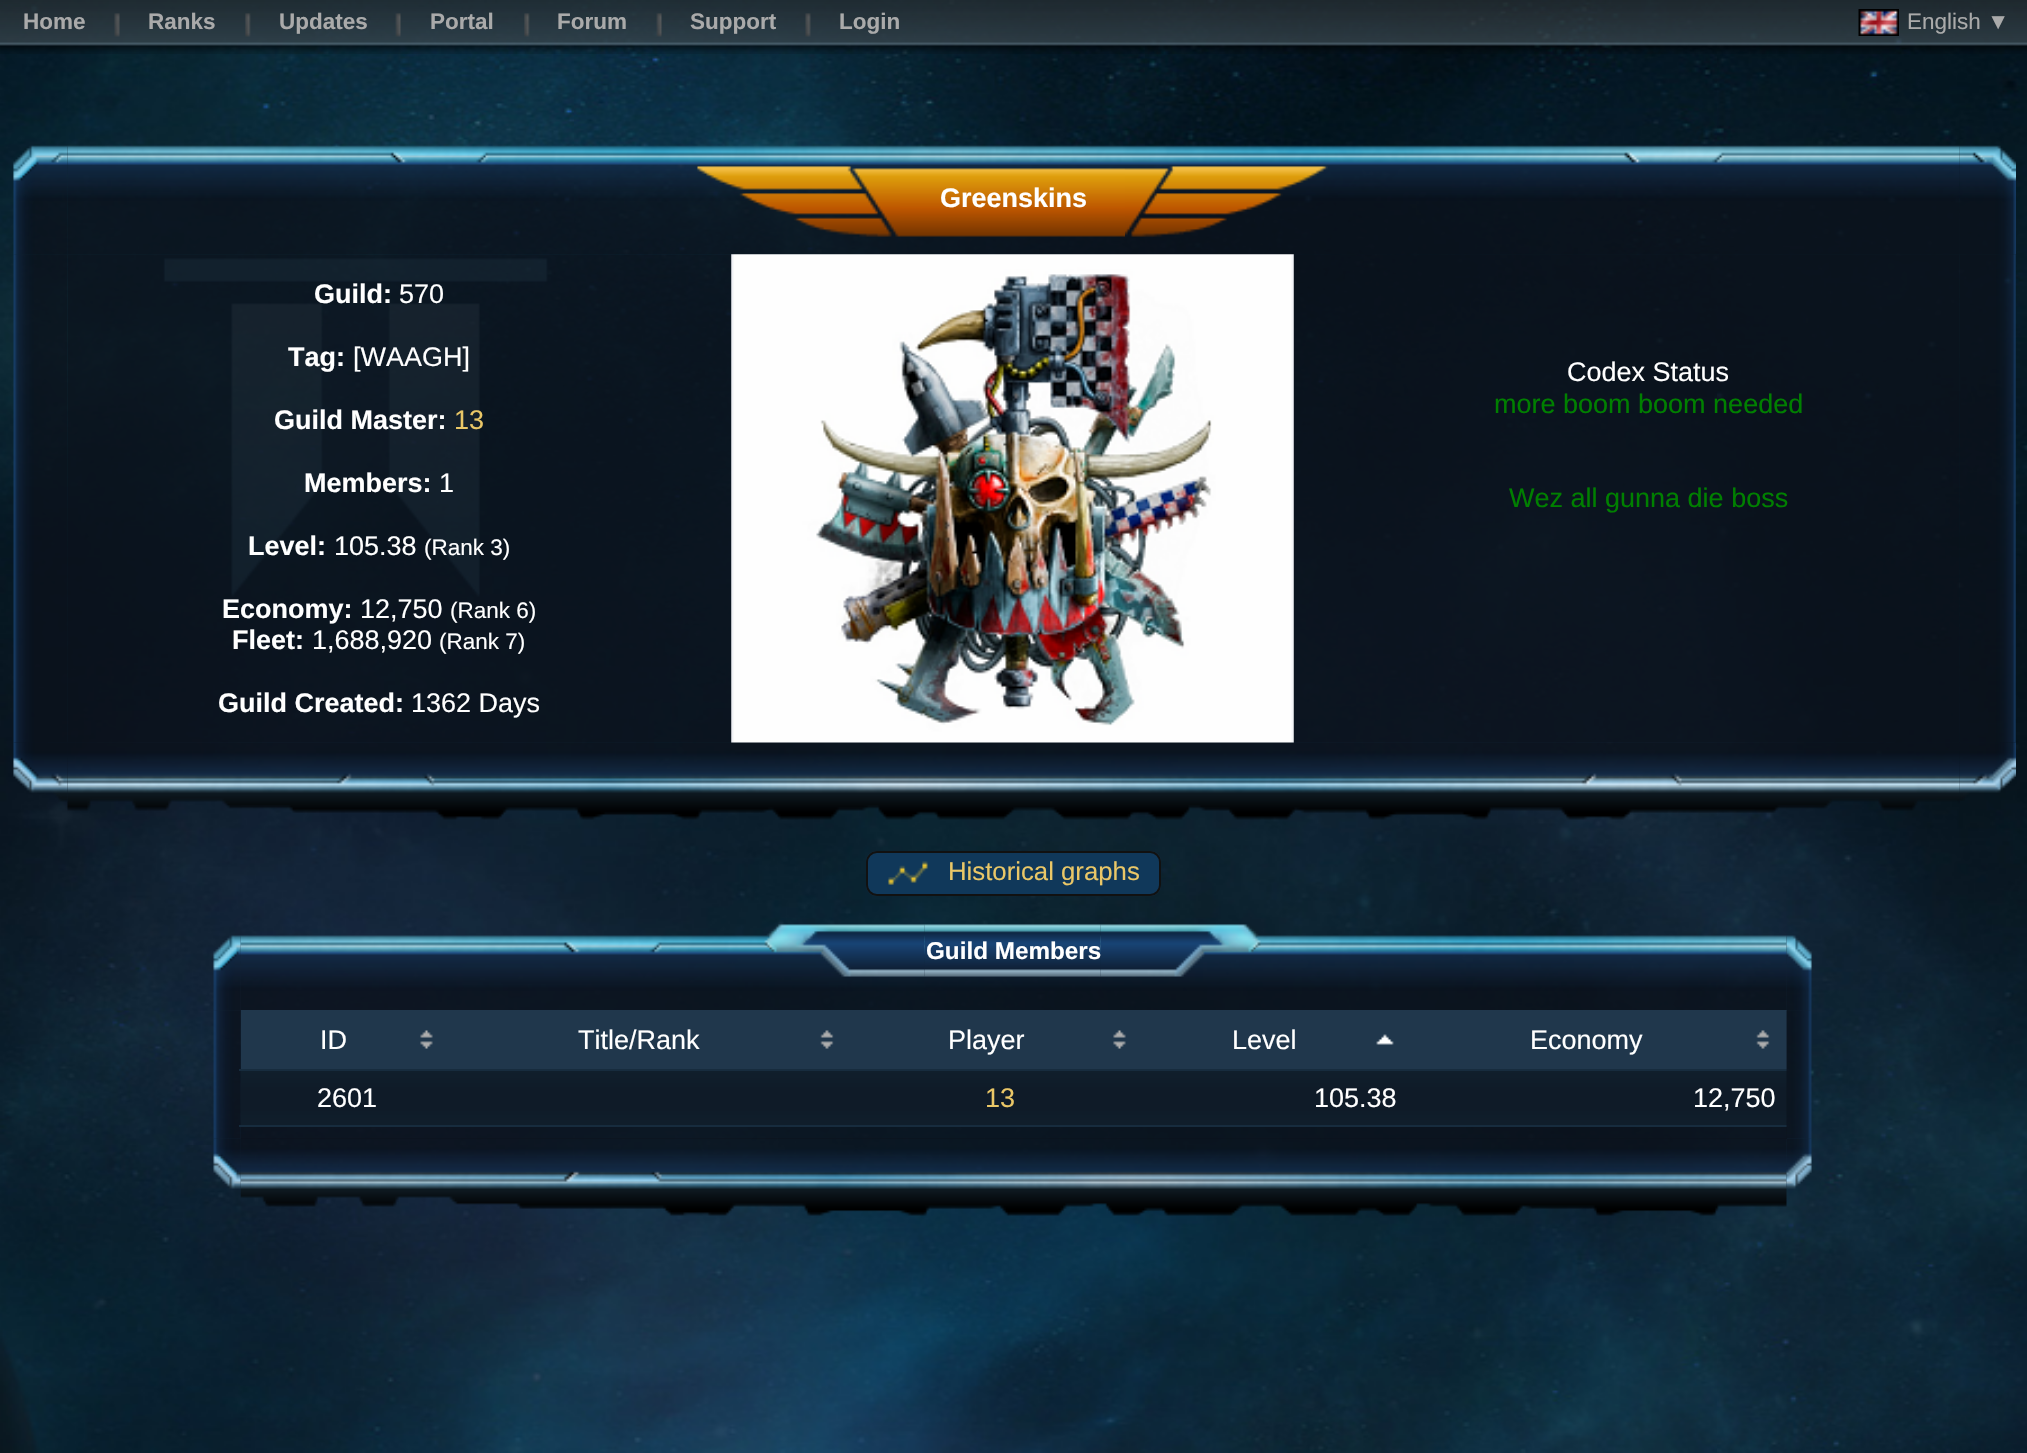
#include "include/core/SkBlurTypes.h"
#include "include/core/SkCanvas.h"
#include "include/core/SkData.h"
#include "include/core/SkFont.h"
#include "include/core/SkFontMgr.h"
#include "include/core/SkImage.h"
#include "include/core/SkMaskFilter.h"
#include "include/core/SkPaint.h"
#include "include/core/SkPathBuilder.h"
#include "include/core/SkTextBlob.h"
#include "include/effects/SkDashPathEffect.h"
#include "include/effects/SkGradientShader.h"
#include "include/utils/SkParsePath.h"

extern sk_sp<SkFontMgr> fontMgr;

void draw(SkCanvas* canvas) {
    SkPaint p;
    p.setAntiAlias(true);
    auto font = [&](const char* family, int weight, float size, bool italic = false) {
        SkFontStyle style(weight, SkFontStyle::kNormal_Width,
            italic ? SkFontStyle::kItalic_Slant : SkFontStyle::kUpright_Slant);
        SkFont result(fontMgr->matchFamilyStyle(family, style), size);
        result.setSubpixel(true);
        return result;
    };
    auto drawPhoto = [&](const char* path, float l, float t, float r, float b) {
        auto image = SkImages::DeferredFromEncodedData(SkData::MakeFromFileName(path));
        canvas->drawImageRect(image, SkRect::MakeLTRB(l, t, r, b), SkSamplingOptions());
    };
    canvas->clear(0xFFFFFFFF);
    drawPhoto("media/1.png", 0, 0, 2027, 1453);
    drawPhoto("media/2.png", 0, 0, 2027, 54);
    auto font1 = font("Liberation Sans", 700, 22.5f);
    p.setColor(0xFFAAAAAA);
    canvas->drawString("Home", 23, 29, font1, p);
    drawPhoto("media/3.png", 114, 13, 120, 37);
    canvas->drawString("Ranks", 148, 29, font1, p);
    drawPhoto("media/4.png", 245, 13, 251, 37);
    canvas->drawString("Updates", 279, 29, font1, p);
    drawPhoto("media/5.png", 395, 13, 401, 37);
    canvas->drawString("Portal", 430, 29, font1, p);
    drawPhoto("media/6.png", 524, 13, 530, 37);
    canvas->drawString("Forum", 557, 29, font1, p);
    drawPhoto("media/7.png", 656, 13, 662, 37);
    canvas->drawString("Support", 690, 29, font1, p);
    drawPhoto("media/8.png", 805, 13, 811, 37);
    canvas->drawString("Login", 839, 29, font1, p);
    drawPhoto("media/9.png", 1858, 9, 1899, 36);
    auto font2 = font("Liberation Sans", 400, 22.5f);
    canvas->drawString("English ▼", 1907, 29, font2, p);
    drawPhoto("media/10.png", 13, 145, 68, 255);
    drawPhoto("media/11.png", 67, 145, 1960, 255);
    drawPhoto("media/12.png", 697, 166, 900, 237);
    drawPhoto("media/13.png", 900, 168, 1125, 237);
    auto font3 = font("Liberation Sans", 700, 27);
    p.setColor(0xFFFFFFFF);
    canvas->drawString("Greenskins", 940, 207, font3, p);
    drawPhoto("media/14.png", 1125, 166, 1328, 237);
    drawPhoto("media/15.png", 1959, 145, 2016, 255);
    drawPhoto("media/16.png", 13, 254, 68, 743);
    drawPhoto("media/17.png", 67, 254, 1960, 743);
    canvas->drawString("Guild:", 314, 303, font3, p);
    auto font4 = font("Liberation Sans", 400, 27);
    canvas->drawString("570", 399, 303, font4, p);
    canvas->drawString("Tag:", 288, 366, font3, p);
    canvas->drawString("[WAAGH]", 353, 366, font4, p);
    canvas->drawString("Guild Master:", 274, 429, font3, p);
    p.setColor(0xFFEAC767);
    canvas->drawString("13", 454, 429, font4, p);
    p.setColor(0xFFFFFFFF);
    canvas->drawString("Members:", 304, 492, font3, p);
    canvas->drawString("1", 439, 492, font4, p);
    canvas->drawString("Level:", 248, 555, font3, p);
    canvas->drawString("105.38", 334, 555, font4, p);
    canvas->drawString("(Rank 3)", 424, 555, font2, p);
    canvas->drawString("Economy:", 222, 618, font3, p);
    canvas->drawString("12,750", 360, 618, font4, p);
    canvas->drawString("(Rank 6)", 450, 618, font2, p);
    canvas->drawString("Fleet:", 232, 649, font3, p);
    canvas->drawString("1,688,920", 312, 649, font4, p);
    canvas->drawString("(Rank 7)", 439, 649, font2, p);
    canvas->drawString("Guild Created:", 218, 712, font3, p);
    canvas->drawString("1362 Days", 411, 712, font4, p);
    drawPhoto("media/20.png", 13, 742, 68, 802);
    drawPhoto("media/21.png", 67, 742, 1960, 820);
    drawPhoto("media/18.png", 731, 254, 1294, 743);
    canvas->drawString("Codex Status", 1567, 381, font4, p);
    p.setColor(0xFF008000);
    canvas->drawString("more boom boom needed", 1494, 413, font4, p);
    canvas->drawString("Wez all gunna die boss", 1509, 507, font4, p);
    drawPhoto("media/19.png", 1960, 254, 2016, 743);
    drawPhoto("media/22.png", 1959, 742, 2016, 801);
    p.setColor(0xFF10385A);
    canvas->drawRoundRect(SkRect::MakeLTRB(866, 851, 1161, 896), 11, 11, p);
    drawPhoto("media/23.png", 888, 861, 928, 885);
    p.setStyle(SkPaint::kStroke_Style);
    p.setStrokeWidth(2);
    p.setColor(0xFF111111);
    canvas->drawRoundRect(SkRect::MakeLTRB(867, 852, 1160, 895), 10, 10, p);
    auto font5 = font("Liberation Sans", 400, 25.75f);
    p.setStyle(SkPaint::kFill_Style);
    p.setColor(0xFFEAC767);
    canvas->drawString("Historical graphs", 948, 880, font5, p);
    drawPhoto("media/24.png", 213, 935, 241, 1011);
    drawPhoto("media/25.png", 240, 935, 1787, 1011);
    drawPhoto("media/26.png", 764, 924, 925, 977);
    drawPhoto("media/27.png", 924, 924, 1101, 977);
    drawPhoto("media/28.png", 1100, 924, 1261, 977);
    auto font6 = font("Liberation Sans", 700, 24.25f);
    p.setColor(0xFFFFFFFF);
    canvas->drawString("Guild Members", 926, 959, font6, p);
    drawPhoto("media/29.png", 1786, 935, 1812, 1011);
    drawPhoto("media/30.png", 213, 1010, 241, 1139);
    p.setColor(0xCC0A101A);
    canvas->drawRect(SkRect::MakeLTRB(241, 1127, 1787, 1139), p);
    p.setColor(0xFF20374C);
    canvas->drawRect(SkRect::MakeLTRB(241, 1010, 1787, 1069), p);
    drawPhoto("media/31.png", 420, 1030, 433, 1049);
    p.setColor(0xFFFFFFFF);
    canvas->drawString("ID", 320, 1049, font4, p);
    drawPhoto("media/32.png", 820, 1030, 834, 1049);
    canvas->drawString("Title/Rank", 578, 1049, font4, p);
    drawPhoto("media/31.png", 1113, 1030, 1126, 1049);
    canvas->drawString("Player", 948, 1049, font4, p);
    drawPhoto("media/33.png", 1376, 1034, 1394, 1045);
    canvas->drawString("Level", 1232, 1049, font4, p);
    drawPhoto("media/32.png", 1756, 1030, 1770, 1049);
    canvas->drawString("Economy", 1530, 1049, font4, p);
    {
        const SkColor colors[] = {0xFF101F2C, 0xFF0F1B28, 0xFF0F1B28, 0xFF101F2C};
        const float stops[] = {0, 0.33f, 0.67f, 1};
        const SkPoint ends[] = {{1014, 1071}, {1014, 1127}};
        p.setShader(SkGradientShader::MakeLinear(ends, colors, stops, 4, SkTileMode::kClamp));
        p.setAlpha(255);
    }
    canvas->drawRect(SkRect::MakeLTRB(241, 1071, 1787, 1125), p);
    p.setShader(nullptr);
    p.setColor(0xFFFFFFFF);
    canvas->drawString("2601", 317, 1107, font4, p);
    p.setColor(0xFFEAC767);
    canvas->drawString("13", 985, 1107, font4, p);
    p.setColor(0xFFFFFFFF);
    canvas->drawString("105.38", 1314, 1107, font4, p);
    p.setColor(0xFF172C3E);
    canvas->drawRect(SkRect::MakeLTRB(239, 1069, 1789, 1071), p);
    canvas->drawRect(SkRect::MakeLTRB(239, 1125, 1789, 1127), p);
    p.setColor(0xFFFFFFFF);
    canvas->drawString("12,750", 1693, 1107, font4, p);
    drawPhoto("media/34.png", 1786, 1010, 1812, 1139);
    drawPhoto("media/35.png", 213, 1138, 241, 1189);
    drawPhoto("media/36.png", 240, 1138, 1787, 1216);
    drawPhoto("media/37.png", 1786, 1138, 1812, 1189);
}
